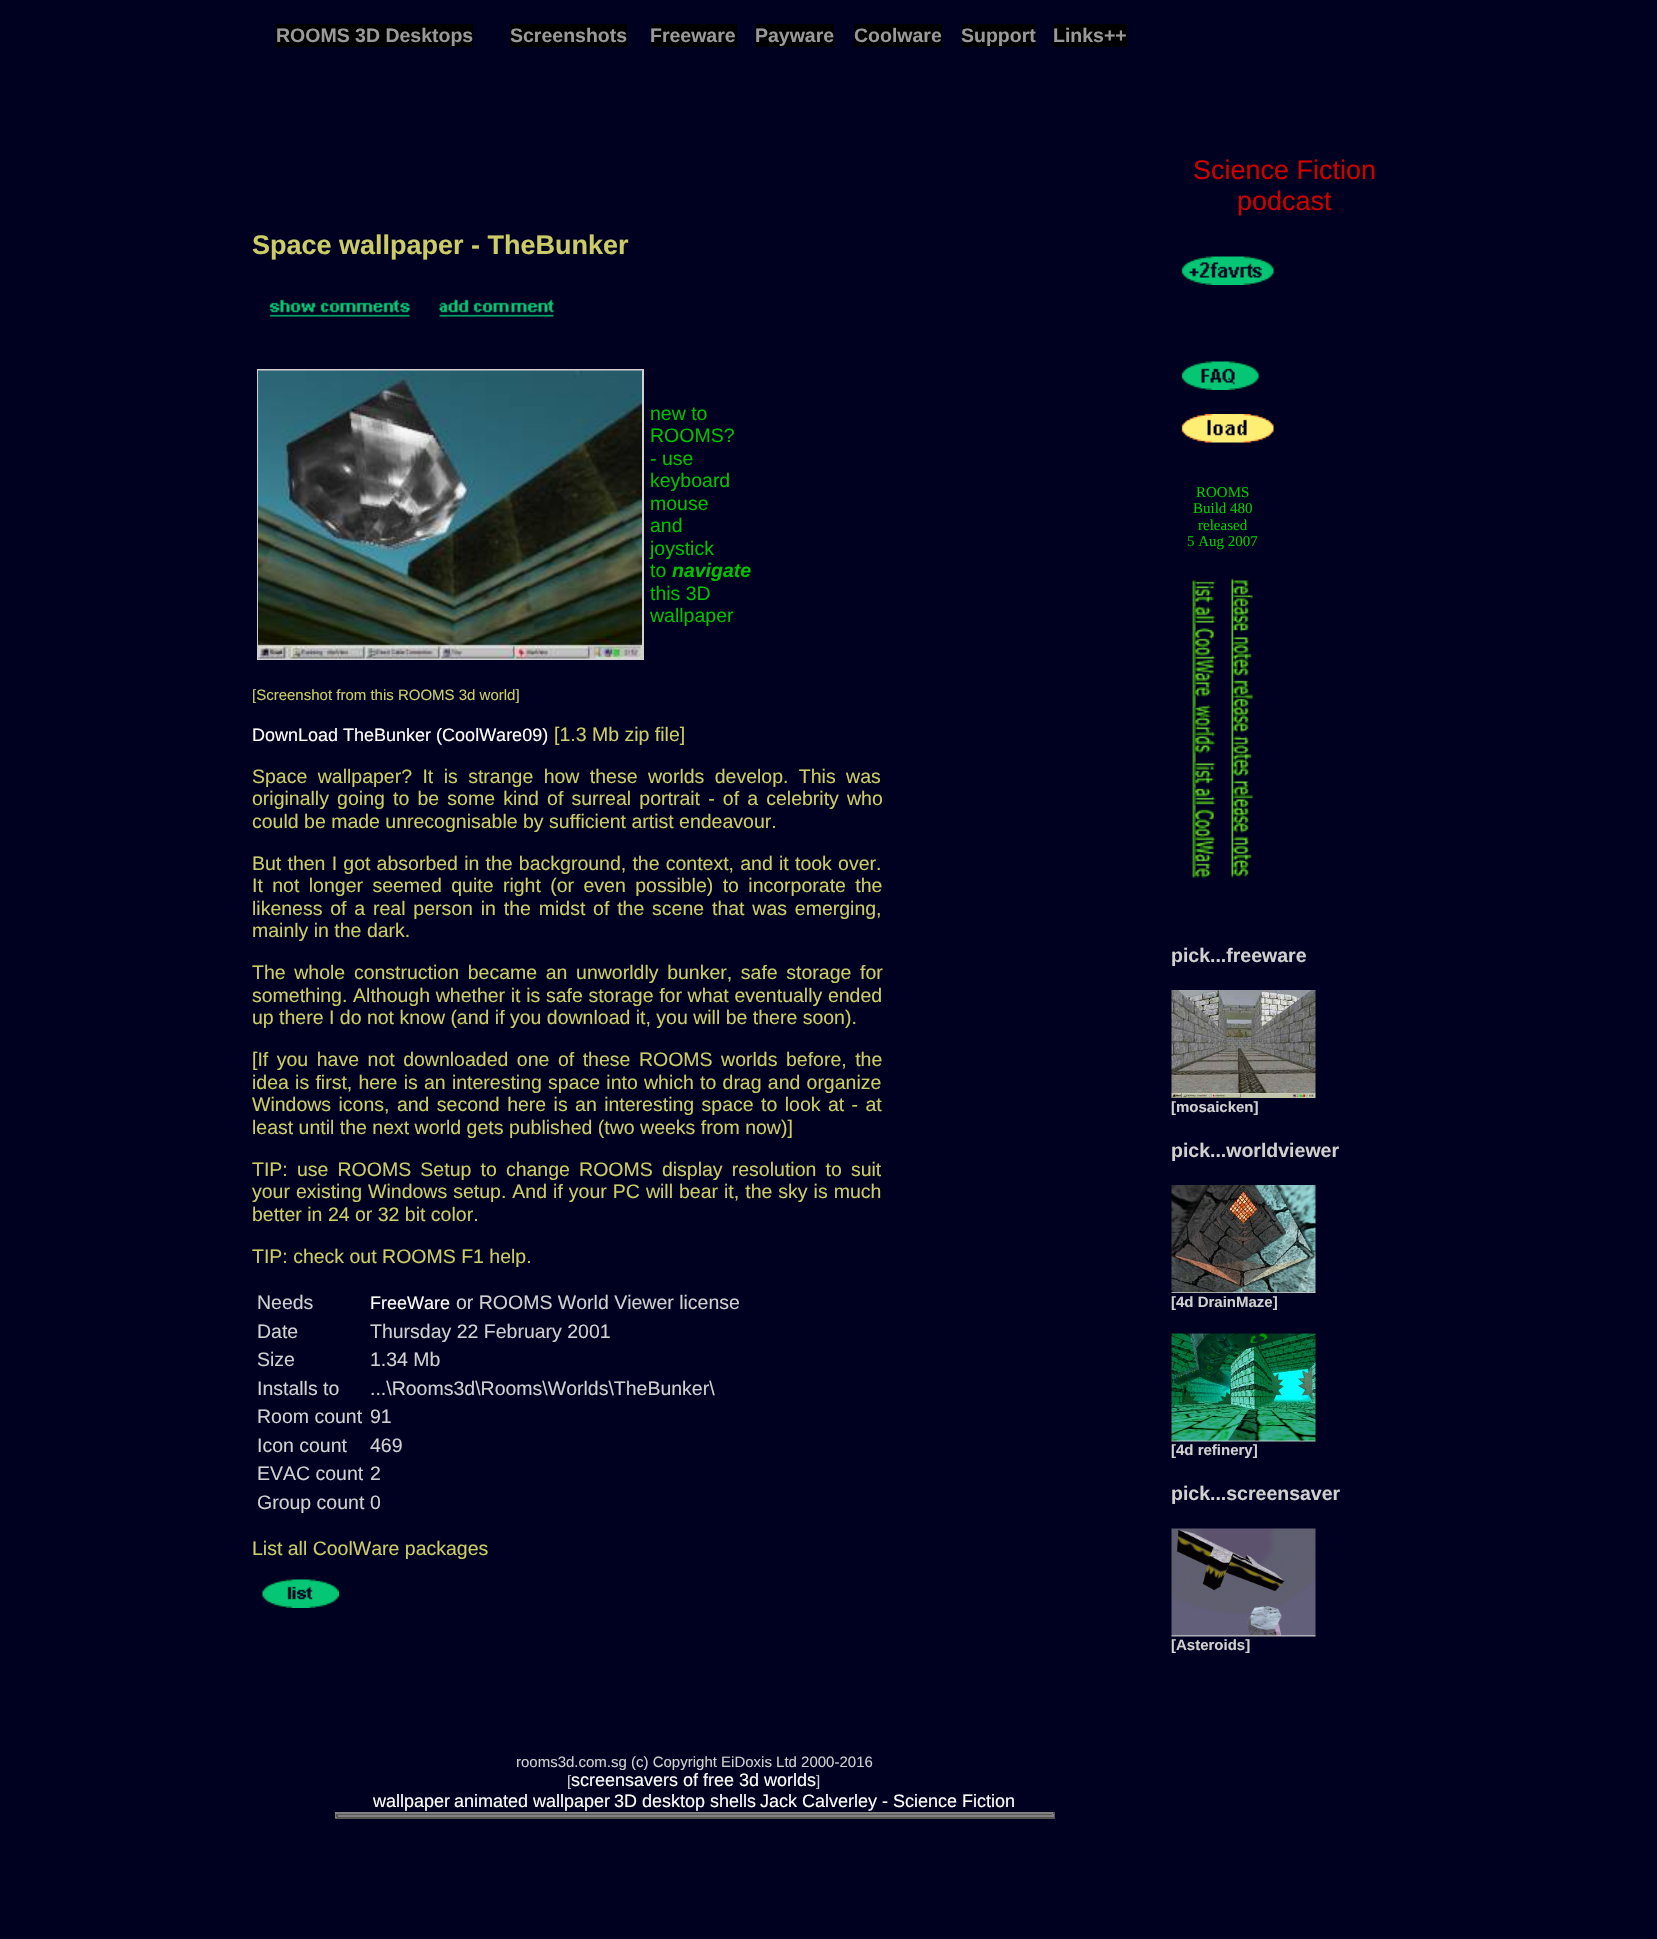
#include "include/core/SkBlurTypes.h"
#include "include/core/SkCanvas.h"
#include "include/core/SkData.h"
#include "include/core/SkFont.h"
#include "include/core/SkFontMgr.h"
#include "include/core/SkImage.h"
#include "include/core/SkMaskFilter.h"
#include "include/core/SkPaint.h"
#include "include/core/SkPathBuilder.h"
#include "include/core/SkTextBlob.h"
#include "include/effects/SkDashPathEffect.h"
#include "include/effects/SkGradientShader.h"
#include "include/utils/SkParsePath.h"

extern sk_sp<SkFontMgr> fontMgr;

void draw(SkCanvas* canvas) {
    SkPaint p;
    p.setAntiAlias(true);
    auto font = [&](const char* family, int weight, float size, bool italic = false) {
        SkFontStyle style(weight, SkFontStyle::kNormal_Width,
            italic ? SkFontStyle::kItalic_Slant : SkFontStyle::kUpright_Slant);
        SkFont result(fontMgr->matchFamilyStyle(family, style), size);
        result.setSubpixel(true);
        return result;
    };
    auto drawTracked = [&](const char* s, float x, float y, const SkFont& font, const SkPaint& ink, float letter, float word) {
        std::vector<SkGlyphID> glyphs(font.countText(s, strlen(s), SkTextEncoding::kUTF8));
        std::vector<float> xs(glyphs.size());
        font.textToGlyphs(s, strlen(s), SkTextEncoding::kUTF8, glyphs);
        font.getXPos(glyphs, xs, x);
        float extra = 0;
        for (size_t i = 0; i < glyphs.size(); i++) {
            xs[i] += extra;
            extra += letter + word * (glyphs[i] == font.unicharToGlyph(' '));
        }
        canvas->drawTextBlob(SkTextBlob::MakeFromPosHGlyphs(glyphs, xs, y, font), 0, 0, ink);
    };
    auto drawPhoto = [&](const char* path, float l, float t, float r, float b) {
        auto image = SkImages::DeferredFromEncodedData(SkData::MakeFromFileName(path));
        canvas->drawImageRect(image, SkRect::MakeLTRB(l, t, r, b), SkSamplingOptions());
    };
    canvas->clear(0xFF000020);
    p.setColor(0xFF000000);
    canvas->drawRect(SkRect::MakeLTRB(276, 24, 473, 47), p);
    auto font1 = font("Liberation Sans", 700, 19.5f);
    p.setColor(0xFF999999);
    canvas->drawString("ROOMS 3D Desktops", 276, 42, font1, p);
    p.setColor(0xFF000000);
    canvas->drawRect(SkRect::MakeLTRB(510, 24, 627, 47), p);
    p.setColor(0xFF999999);
    canvas->drawString("Screenshots", 510, 42, font1, p);
    p.setColor(0xFF000000);
    canvas->drawRect(SkRect::MakeLTRB(651, 24, 737, 47), p);
    p.setColor(0xFF999999);
    canvas->drawString("Freeware", 650, 42, font1, p);
    p.setColor(0xFF000000);
    canvas->drawRect(SkRect::MakeLTRB(756, 24, 834, 47), p);
    p.setColor(0xFF999999);
    canvas->drawString("Payware", 755, 42, font1, p);
    p.setColor(0xFF000000);
    canvas->drawRect(SkRect::MakeLTRB(854, 24, 942, 47), p);
    p.setColor(0xFF999999);
    canvas->drawString("Coolware", 854, 42, font1, p);
    p.setColor(0xFF000000);
    canvas->drawRect(SkRect::MakeLTRB(962, 24, 1035, 47), p);
    p.setColor(0xFF999999);
    canvas->drawString("Support", 961, 42, font1, p);
    p.setColor(0xFF000000);
    canvas->drawRect(SkRect::MakeLTRB(1053, 24, 1127, 47), p);
    p.setColor(0xFF999999);
    canvas->drawString("Links++", 1053, 42, font1, p);
    auto font2 = font("Liberation Sans", 700, 27);
    p.setColor(0xFFCCCC66);
    canvas->drawString("Space wallpaper - TheBunker", 252, 254, font2, p);
    drawPhoto("media/1.png", 269, 299, 410, 317);
    drawPhoto("media/2.png", 439, 299, 554, 317);
    p.setStyle(SkPaint::kStroke_Style);
    p.setStrokeWidth(2);
    p.setColor(0xFFD0D0D0);
    canvas->drawRect(SkRect::MakeLTRB(258, 370, 643, 659), p);
    drawPhoto("media/3.png", 258, 370, 642, 659);
    auto font3 = font("Liberation Sans", 400, 19.5f);
    p.setStyle(SkPaint::kFill_Style);
    p.setColor(0xFF00C000);
    {
        const struct { const char* s; float x, y; } items[] = {
            {"new to", 650, 420},
            {"ROOMS?", 650, 442},
            {"- use", 650, 465},
            {"keyboard", 650, 487},
            {"mouse", 650, 510},
            {"and", 650, 532},
            {"joystick", 650, 555},
            {"to", 650, 577},
        };
        for (auto [s, x, y] : items) {
            canvas->drawString(s, x, y, font3, p);
        }
    }
    auto font4 = font("Liberation Sans", 700, 19.5f, true);
    canvas->drawString("navigate", 672, 577, font4, p);
    canvas->drawString("this 3D", 650, 600, font3, p);
    canvas->drawString("wallpaper", 650, 622, font3, p);
    auto font5 = font("Liberation Sans", 400, 15);
    p.setColor(0xFFCCCC66);
    canvas->drawString("[Screenshot from this ROOMS 3d world]", 252, 700, font5, p);
    auto font6 = font("Liberation Sans", 400, 18);
    p.setColor(0xFFFFFFFF);
    canvas->drawString("DownLoad TheBunker (CoolWare09)", 252, 741, font6, p);
    p.setColor(0xFFCCCC66);
    canvas->drawString("[1.3 Mb zip file]", 554, 741, font3, p);
    drawTracked("Space wallpaper? It is strange how these worlds develop. This was", 252, 783, font3, p, 0, 5);
    drawTracked("originally going to be some kind of surreal portrait - of a celebrity who", 252, 805, font3, p, 0, 2.75f);
    canvas->drawString("could be made unrecognisable by sufficient artist endeavour.", 252, 828, font3, p);
    drawTracked("But then I got absorbed in the background, the context, and it took over.", 252, 870, font3, p, 0, 0.8f);
    drawTracked("It not longer seemed quite right (or even possible) to incorporate the", 252, 892, font3, p, 0, 4);
    drawTracked("likeness of a real person in the midst of the scene that was emerging,", 252, 915, font3, p, 0, 2.4f);
    canvas->drawString("mainly in the dark.", 252, 937, font3, p);
    drawTracked("The whole construction became an unworldly bunker, safe storage for", 252, 979, font3, p, 0, 3.25f);
    drawTracked("something. Although whether it is safe storage for what eventually ended", 252, 1002, font3, p, 0, 0.25f);
    canvas->drawString("up there I do not know (and if you download it, you will be there soon).", 252, 1024, font3, p);
    drawTracked("[If you have not downloaded one of these ROOMS worlds before, the", 252, 1066, font3, p, 0, 3.1f);
    drawTracked("idea is first, here is an interesting space into which to drag and organize", 252, 1089, font3, p, 0, 0.8f);
    drawTracked("Windows icons, and second here is an interesting space to look at - at", 252, 1111, font3, p, 0, 2);
    canvas->drawString("least until the next world gets published (two weeks from now)]", 252, 1134, font3, p);
    drawTracked("TIP: use ROOMS Setup to change ROOMS display resolution to suit", 252, 1176, font3, p, 0, 3.75f);
    drawTracked("your existing Windows setup. And if your PC will bear it, the sky is much", 252, 1198, font3, p, 0, 0.6f);
    canvas->drawString("better in 24 or 32 bit color.", 252, 1221, font3, p);
    canvas->drawString("TIP: check out ROOMS F1 help.", 252, 1263, font3, p);
    p.setColor(0xFFD0D0D0);
    canvas->drawString("Needs", 257, 1309, font3, p);
    p.setColor(0xFFFFFFFF);
    canvas->drawString("FreeWare", 370, 1309, font6, p);
    p.setColor(0xFFD0D0D0);
    {
        const struct { const char* s; float x, y; } items[] = {
            {"or ROOMS World Viewer license", 456, 1309},
            {"Date", 257, 1338},
            {"Thursday 22 February 2001", 370, 1338},
            {"Size", 257, 1366},
            {"1.34 Mb", 370, 1366},
            {"Installs to", 257, 1395},
            {"...\\Rooms3d\\Rooms\\Worlds\\TheBunker\\", 370, 1395},
            {"Room count", 257, 1423},
            {"91", 370, 1423},
            {"Icon count", 257, 1452},
            {"469", 370, 1452},
            {"EVAC count", 257, 1480},
            {"2", 370, 1480},
            {"Group count", 257, 1509},
            {"0", 370, 1509},
        };
        for (auto [s, x, y] : items) {
            canvas->drawString(s, x, y, font3, p);
        }
    }
    p.setColor(0xFFCCCC66);
    canvas->drawString("List all CoolWare packages", 252, 1555, font3, p);
    drawPhoto("media/4.png", 262, 1579, 339, 1608);
    auto font7 = font("Liberation Sans", 400, 27);
    p.setColor(0xFFCC0000);
    canvas->drawString("Science Fiction", 1193, 179, font7, p);
    canvas->drawString("podcast", 1237, 210, font7, p);
    drawPhoto("media/5.png", 1181, 256, 1274, 285);
    drawPhoto("media/6.png", 1181, 361, 1259, 390);
    drawPhoto("media/7.png", 1181, 414, 1274, 443);
    auto font8 = font("Liberation Serif", 400, 15);
    p.setColor(0xFF00CC00);
    {
        const struct { const char* s; float x, y; } items[] = {
            {"ROOMS", 1196, 497},
            {"Build 480", 1193, 513},
            {"released", 1198, 530},
            {"5 Aug 2007", 1187, 546},
        };
        for (auto [s, x, y] : items) {
            canvas->drawString(s, x, y, font8, p);
        }
    }
    drawPhoto("media/8.png", 1192, 578, 1253, 878);
    p.setColor(0xFFD0D0D0);
    canvas->drawString("pick...freeware", 1171, 962, font1, p);
    drawPhoto("media/9.png", 1171, 990, 1316, 1098);
    auto font9 = font("Liberation Sans", 700, 15);
    canvas->drawString("[mosaicken]", 1171, 1112, font9, p);
    canvas->drawString("pick...worldviewer", 1171, 1157, font1, p);
    drawPhoto("media/10.png", 1171, 1185, 1316, 1293);
    canvas->drawString("[4d DrainMaze]", 1171, 1307, font9, p);
    drawPhoto("media/11.png", 1171, 1333, 1316, 1442);
    canvas->drawString("[4d refinery]", 1171, 1455, font9, p);
    canvas->drawString("pick...screensaver", 1171, 1500, font1, p);
    drawPhoto("media/12.png", 1171, 1528, 1316, 1637);
    canvas->drawString("[Asteroids]", 1171, 1650, font9, p);
    canvas->drawString("rooms3d.com.sg (c) Copyright EiDoxis Ltd 2000-2016", 516, 1767, font5, p);
    canvas->drawString("[", 567, 1786, font5, p);
    p.setColor(0xFFFFFFFF);
    canvas->drawString("screensavers of free 3d worlds", 571, 1786, font6, p);
    p.setColor(0xFFD0D0D0);
    canvas->drawString("]", 816, 1786, font5, p);
    p.setColor(0xFFFFFFFF);
    {
        const struct { const char* s; float x, y; } items[] = {
            {"wallpaper", 373, 1807},
            {"animated wallpaper", 454, 1807},
            {"3D desktop shells", 614, 1807},
            {"Jack Calverley - Science Fiction", 760, 1807},
        };
        for (auto [s, x, y] : items) {
            canvas->drawString(s, x, y, font6, p);
        }
    }
    {
        const struct { float l, t, r, b; SkColor color; } items[] = {
            {335, 1812, 1055, 1814, 0xFF808080},
            {1053, 1812, 1055, 1818, 0xFF555555},
            {335, 1817, 1055, 1819, 0xFF555555},
            {335, 1812, 337, 1818, 0xFF808080},
            {336, 1814, 1053, 1815, 0xFF555555},
            {1052, 1814, 1054, 1817, 0xFF808080},
            {336, 1815, 1053, 1817, 0xFF808080},
            {336, 1814, 338, 1817, 0xFF555555},
        };
        for (auto [l, t, r, b, color] : items) {
            p.setColor(color);
            canvas->drawRect(SkRect::MakeLTRB(l, t, r, b), p);
        }
    }
}
